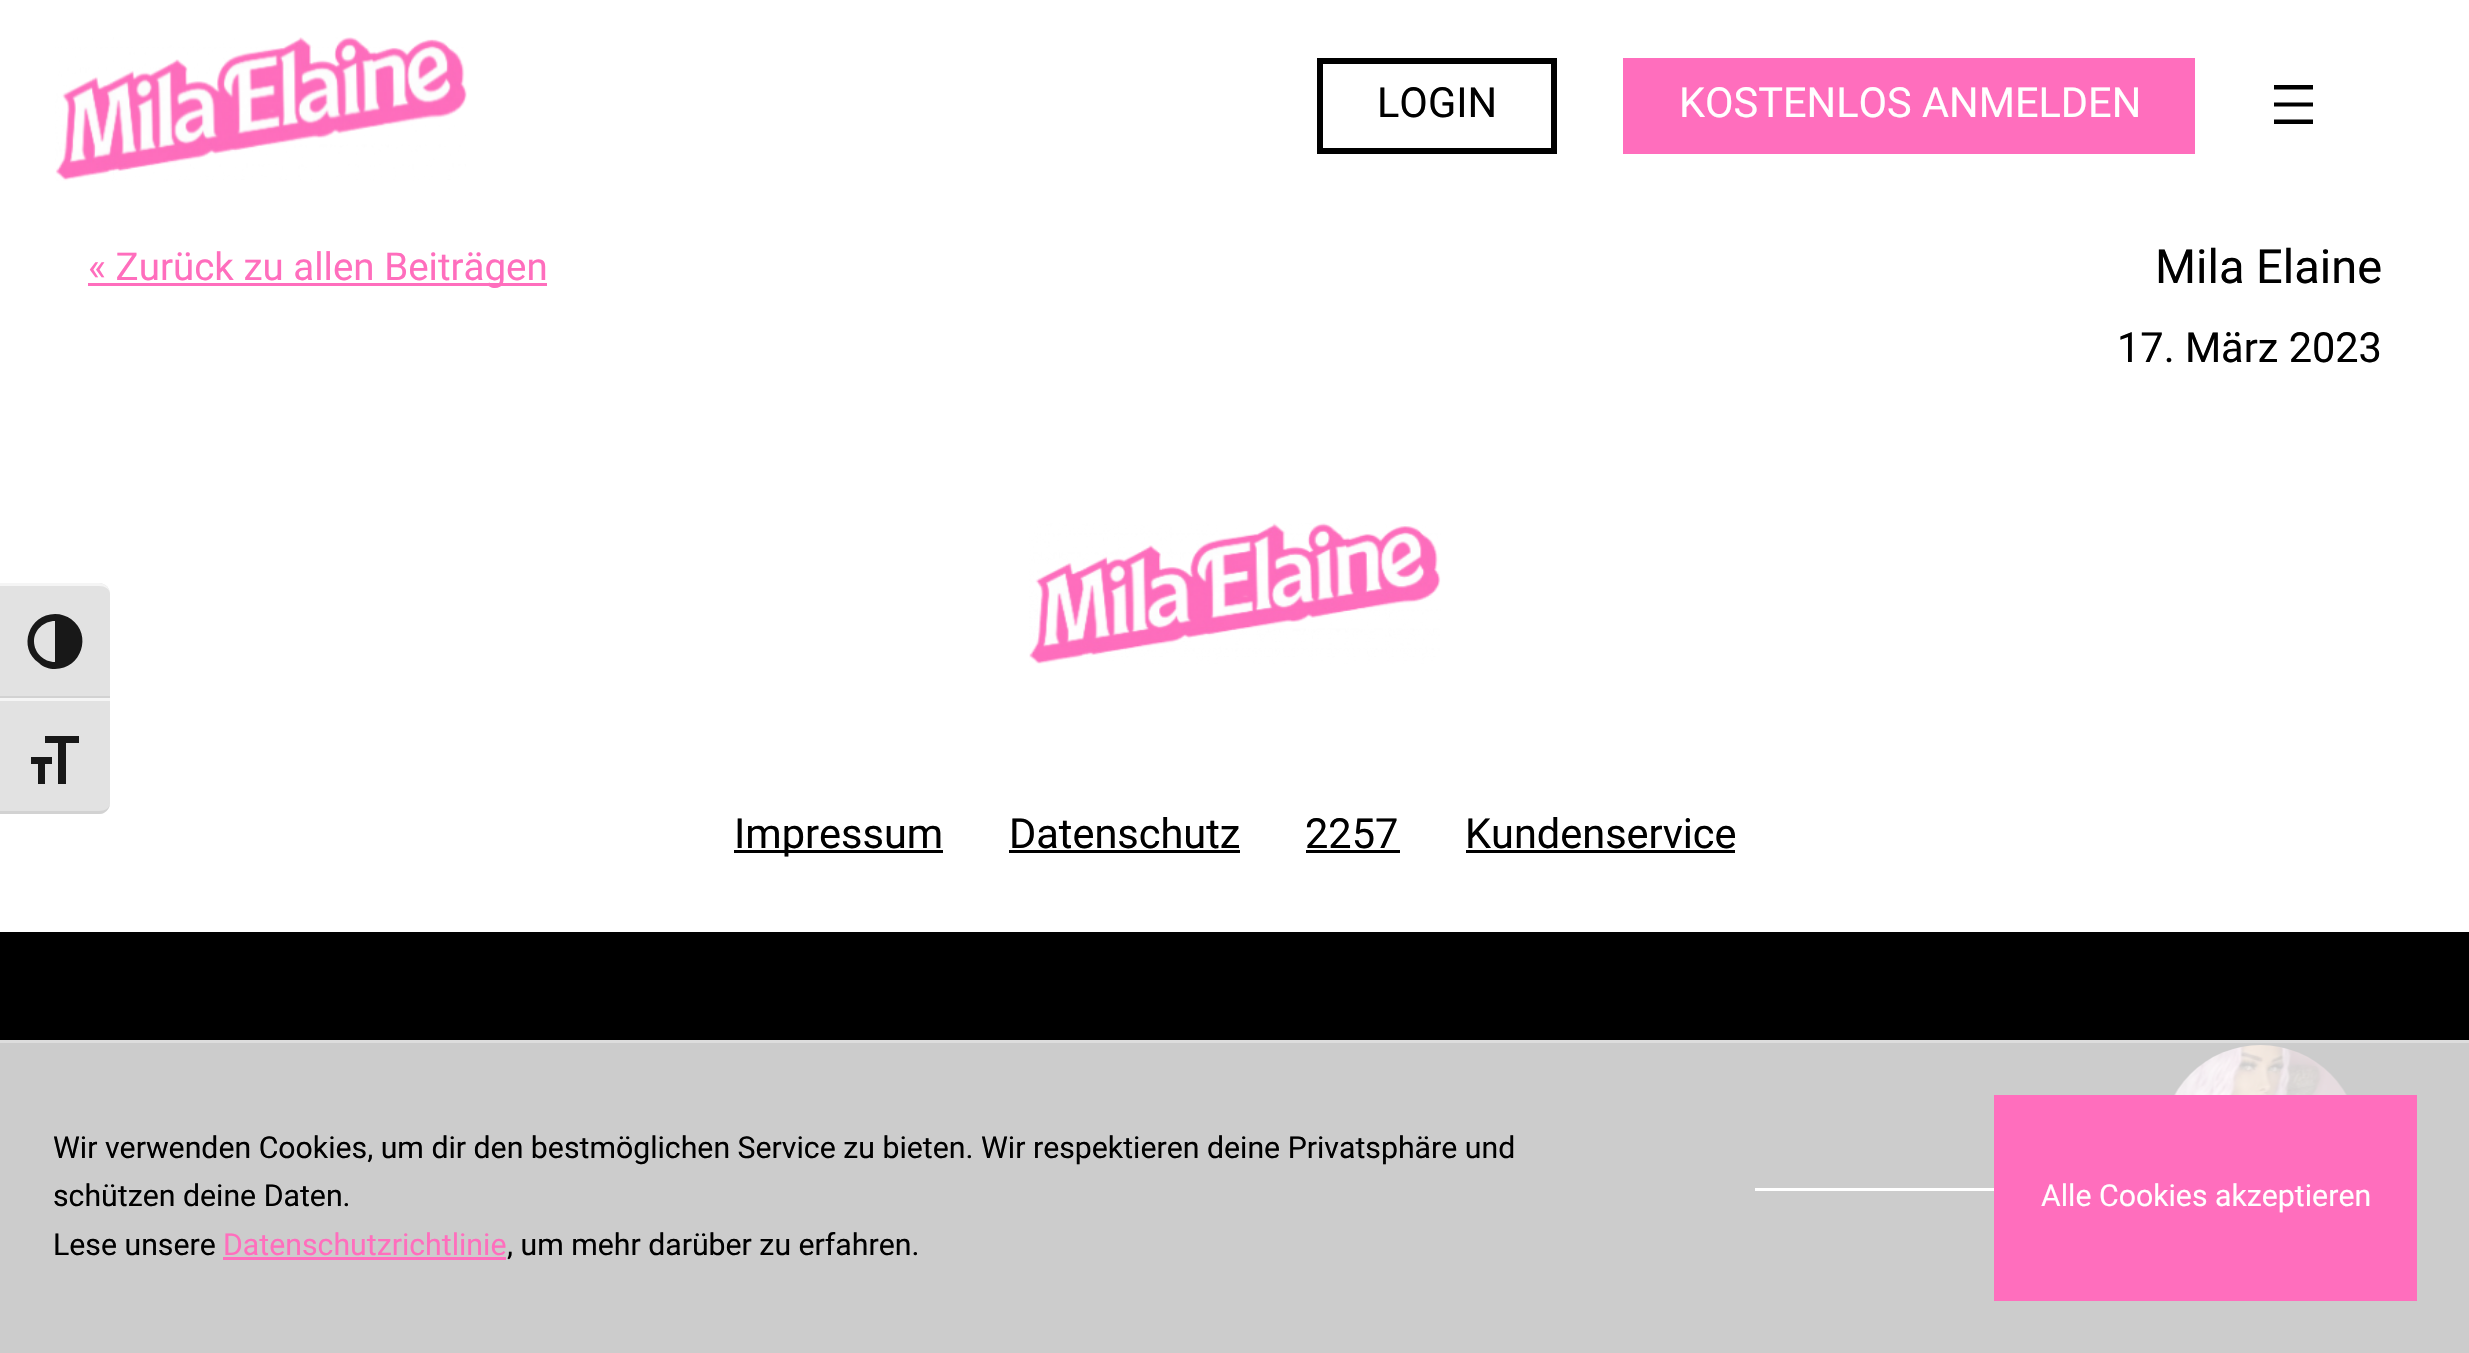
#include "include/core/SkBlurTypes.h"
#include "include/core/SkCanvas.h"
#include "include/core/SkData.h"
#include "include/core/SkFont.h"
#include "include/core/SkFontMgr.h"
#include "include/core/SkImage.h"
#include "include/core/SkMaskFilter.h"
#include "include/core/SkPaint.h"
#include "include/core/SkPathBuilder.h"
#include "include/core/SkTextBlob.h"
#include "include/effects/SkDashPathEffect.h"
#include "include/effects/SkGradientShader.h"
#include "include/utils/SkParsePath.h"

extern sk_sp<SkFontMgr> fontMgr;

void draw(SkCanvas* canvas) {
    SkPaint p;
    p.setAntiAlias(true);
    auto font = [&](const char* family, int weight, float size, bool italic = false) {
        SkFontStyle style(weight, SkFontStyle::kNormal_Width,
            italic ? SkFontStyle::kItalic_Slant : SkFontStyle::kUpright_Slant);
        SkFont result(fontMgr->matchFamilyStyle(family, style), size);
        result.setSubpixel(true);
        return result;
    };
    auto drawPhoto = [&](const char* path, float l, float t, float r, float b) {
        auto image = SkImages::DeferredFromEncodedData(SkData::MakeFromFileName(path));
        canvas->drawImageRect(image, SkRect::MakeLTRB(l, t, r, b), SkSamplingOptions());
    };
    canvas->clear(0xFFFFFFFF);
    p.setColor(0xFFE2E2E2);
    canvas->drawPath(SkPathBuilder().moveTo(0, 583).lineTo(99, 583).cubicTo(105, 583, 110, 588, 110, 594).lineTo(110, 699).lineTo(0, 699).close().detach(), p);
    p.setColor(0xFFF5F5F5);
    canvas->drawPath(SkPathBuilder().moveTo(0, 583).lineTo(0, 586).lineTo(99, 586).cubicTo(105, 586, 110, 589, 110, 594).cubicTo(110, 588, 105, 583, 99, 583).close().detach(), p);
    p.setColor(0xFFD2D2D2);
    canvas->drawRect(SkRect::MakeLTRB(0, 696, 110, 698), p);
    p.setColor(0xFF181818);
    canvas->drawPath(SkPathBuilder().moveTo(55, 614).cubicTo(29, 614, 17, 648, 39, 663).cubicTo(43, 667, 49, 669, 55, 669).cubicTo(81, 669, 93, 635, 71, 619).cubicTo(67, 616, 61, 614, 55, 614).close().moveTo(34, 641).cubicTo(34, 630, 44, 621, 55, 621).lineTo(55, 662).cubicTo(44, 662, 34, 653, 34, 641).close().detach(), p);
    p.setColor(0xFFE2E2E2);
    canvas->drawPath(SkPathBuilder().moveTo(0, 699).lineTo(110, 699).lineTo(110, 803).cubicTo(110, 809, 105, 814, 99, 814).lineTo(0, 814).close().detach(), p);
    p.setColor(0xFFF5F5F5);
    canvas->drawRect(SkRect::MakeLTRB(0, 698, 110, 701), p);
    p.setColor(0xFFD2D2D2);
    canvas->drawPath(SkPathBuilder().moveTo(0, 811).lineTo(0, 814).lineTo(99, 814).cubicTo(105, 814, 110, 809, 110, 803).cubicTo(110, 808, 105, 811, 99, 811).close().detach(), p);
    p.setColor(0xFF181818);
    canvas->drawPath(SkPathBuilder().moveTo(31, 757).lineTo(52, 757).lineTo(52, 764).lineTo(45, 764).lineTo(45, 784).lineTo(38, 784).lineTo(38, 764).lineTo(31, 764).close().moveTo(79, 743).lineTo(66, 743).lineTo(66, 784).lineTo(58, 784).lineTo(58, 743).lineTo(45, 743).lineTo(45, 736).lineTo(79, 736).close().detach(), p);
    drawPhoto("media/1.png", 55, 37, 467, 181);
    p.setStyle(SkPaint::kStroke_Style);
    p.setStrokeWidth(6);
    p.setColor(0xFF000000);
    canvas->drawRect(SkRect::MakeLTRB(1320, 61, 1554, 151), p);
    auto font1 = font("Roboto", 400, 41.5f);
    p.setStyle(SkPaint::kFill_Style);
    canvas->drawString("LOGIN", 1377, 117, font1, p);
    p.setColor(0xFFFF6EBD);
    canvas->drawRect(SkRect::MakeLTRB(1623, 58, 2195, 154), p);
    p.setColor(0xFFFFFFFF);
    canvas->drawString("KOSTENLOS ANMELDEN", 1679, 117, font1, p);
    p.setColor(0xFF000000);
    canvas->drawPath(SkPathBuilder().moveTo(2274, 85).lineTo(2274, 89.5f).lineTo(2313, 89.5f).lineTo(2313, 85).close().moveTo(2274, 106.5f).lineTo(2313, 106.5f).lineTo(2313, 102.5f).lineTo(2274, 102.5f).close().moveTo(2274, 124).lineTo(2313, 124).lineTo(2313, 119.5f).lineTo(2274, 119.5f).close().detach(), p);
    p.setColor(0xFFFF6EBD);
    canvas->drawRect(SkRect::MakeLTRB(88, 283, 547, 286), p);
    auto font2 = font("Roboto", 400, 38.5f);
    canvas->drawString("« Zurück zu allen Beiträgen", 88, 280, font2, p);
    auto font3 = font("Roboto", 400, 47);
    p.setColor(0xFF000000);
    canvas->drawString("Mila Elaine", 2155, 283, font3, p);
    canvas->drawString("17. März 2023", 2117, 362, font1, p);
    drawPhoto("media/2.png", 1029, 523, 1441, 664);
    canvas->drawRect(SkRect::MakeLTRB(734, 850, 943, 853), p);
    canvas->drawString("Impressum", 734, 848, font1, p);
    canvas->drawString("Datenschutz", 1009, 848, font1, p);
    canvas->drawRect(SkRect::MakeLTRB(1009, 850, 1240, 853), p);
    canvas->drawString("2257", 1305, 848, font1, p);
    canvas->drawRect(SkRect::MakeLTRB(1306, 850, 1400, 853), p);
    canvas->drawString("Kundenservice", 1465, 848, font1, p);
    {
        const struct { float l, t, r, b; SkColor color; } items[] = {
            {1466, 850, 1735, 853, 0xFF000000},
            {0, 932, 2469, 1353, 0xFF000000},
            {1755, 1188, 1994, 1191, 0xFFFFFFFF},
        };
        for (auto [l, t, r, b, color] : items) {
            p.setColor(color);
            canvas->drawRect(SkRect::MakeLTRB(l, t, r, b), p);
        }
    }
    drawPhoto("media/3.png", 2174, 1045, 2347, 1095);
    p.setColor(0xCCFFFFFF);
    canvas->drawRect(SkRect::MakeLTRB(0, 1043, 2469, 1353), p);
    p.setColor(0xFFDDDDDD);
    canvas->drawRect(SkRect::MakeLTRB(0, 1040, 2469, 1043), p);
    auto font4 = font("Roboto", 400, 30.25f);
    p.setColor(0xFF000000);
    {
        const struct { const char* s; float x, y; } items[] = {
            {"Wir verwenden Cookies, um dir den bestmöglichen Service zu bieten. Wir respektieren deine Privatsphäre und", 53, 1158},
            {"schützen deine Daten.", 53, 1206},
            {"Lese unsere", 53, 1255},
        };
        for (auto [s, x, y] : items) {
            canvas->drawString(s, x, y, font4, p);
        }
    }
    p.setColor(0xFFFF6EBD);
    canvas->drawString("Datenschutzrichtlinie", 223, 1255, font4, p);
    canvas->drawRect(SkRect::MakeLTRB(223, 1257, 506, 1260), p);
    p.setColor(0xFF000000);
    canvas->drawString(", um mehr darüber zu erfahren.", 507, 1255, font4, p);
    p.setColor(0xFFFF6EBD);
    canvas->drawRect(SkRect::MakeLTRB(1994, 1095, 2417, 1301), p);
    p.setColor(0xFFFFFFFF);
    canvas->drawString("Alle Cookies akzeptieren", 2041, 1206, font4, p);
}
